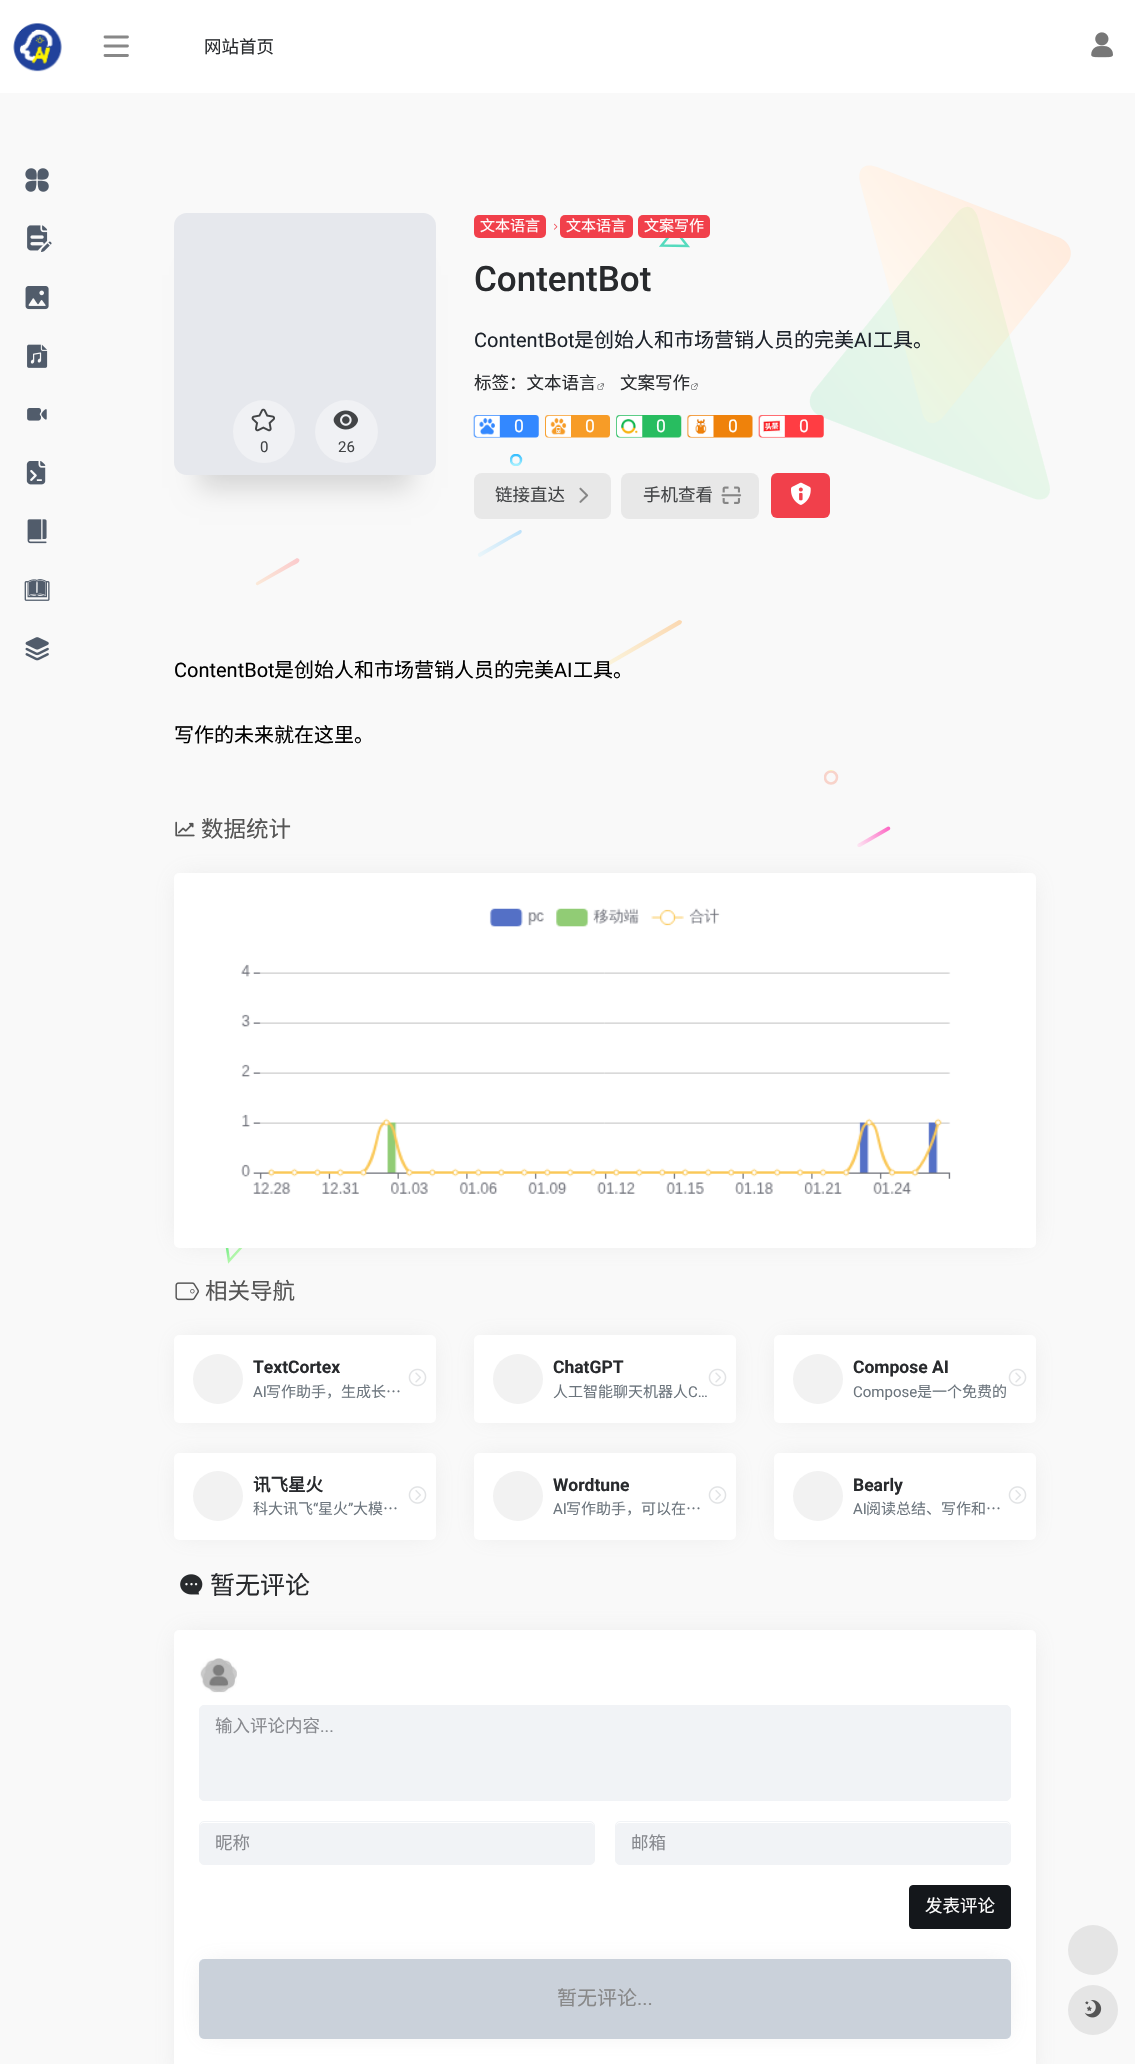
#include "include/core/SkBlurTypes.h"
#include "include/core/SkCanvas.h"
#include "include/core/SkData.h"
#include "include/core/SkFont.h"
#include "include/core/SkFontMgr.h"
#include "include/core/SkImage.h"
#include "include/core/SkMaskFilter.h"
#include "include/core/SkPaint.h"
#include "include/core/SkPathBuilder.h"
#include "include/core/SkTextBlob.h"
#include "include/effects/SkDashPathEffect.h"
#include "include/effects/SkGradientShader.h"
#include "include/utils/SkParsePath.h"

extern sk_sp<SkFontMgr> fontMgr;

void draw(SkCanvas* canvas) {
    SkPaint p;
    p.setAntiAlias(true);
    auto font = [&](const char* family, int weight, float size, bool italic = false) {
        SkFontStyle style(weight, SkFontStyle::kNormal_Width,
            italic ? SkFontStyle::kItalic_Slant : SkFontStyle::kUpright_Slant);
        SkFont result(fontMgr->matchFamilyStyle(family, style), size);
        result.setSubpixel(true);
        return result;
    };
    auto drawPhoto = [&](const char* path, float l, float t, float r, float b) {
        auto image = SkImages::DeferredFromEncodedData(SkData::MakeFromFileName(path));
        canvas->drawImageRect(image, SkRect::MakeLTRB(l, t, r, b), SkSamplingOptions());
    };
    canvas->clear(0xFFF9F9F9);
    p.setColor(0xFFFFFFFF);
    canvas->drawRect(SkRect::MakeLTRB(0, 0, 1135, 93), p);
    drawPhoto("media/1.png", 13, 23, 62, 72);
    drawPhoto("media/2.png", 25, 168, 49, 192);
    drawPhoto("media/3.png", 27, 225, 52, 252);
    drawPhoto("media/4.png", 25, 286, 49, 310);
    drawPhoto("media/5.png", 27, 344, 48, 368);
    drawPhoto("media/6.png", 27, 408, 47, 421);
    drawPhoto("media/7.png", 26, 461, 46, 485);
    drawPhoto("media/8.png", 27, 519, 47, 544);
    drawPhoto("media/9.png", 24, 579, 50, 601);
    drawPhoto("media/10.png", 25, 637, 49, 661);
    p.setStyle(SkPaint::kStroke_Style);
    p.setStrokeWidth(2.8f);
    p.setStrokeCap(SkPaint::kRound_Cap);
    p.setStrokeJoin(SkPaint::kRound_Join);
    p.setColor(0xFF888888);
    canvas->drawPath(SkPathBuilder().moveTo(105, 37).lineTo(127.5f, 37).moveTo(105, 46).lineTo(127.5f, 46).moveTo(105, 55.5f).lineTo(127.5f, 55.5f).detach(), p);
    auto font1 = font("Noto Sans CJK SC", 400, 17.5f);
    p.setStyle(SkPaint::kFill_Style);
    p.setColor(0xFF282A2D);
    canvas->drawString("网站首页", 204, 53, font1, p);
    drawPhoto("media/11.png", 1091, 32, 1113, 58);
    {
        const SkColor colors[] = {0xFFFFEBDD, 0xFFFFFBF4};
        const float stops[] = {0, 1};
        const SkPoint ends[] = {{1016, 166}, {832, 301}};
        p.setShader(SkGradientShader::MakeLinear(ends, colors, stops, 2, SkTileMode::kClamp));
        p.setAlpha(255);
    }
    canvas->drawPath(SkPathBuilder(SkPathFillType::kEvenOdd).moveTo(922, 412).lineTo(860, 182).cubicTo(857, 169, 864, 162, 877, 167).lineTo(1058, 237).cubicTo(1071, 242, 1075, 255, 1066, 265).lineTo(944, 416).cubicTo(935, 427, 925, 425, 922, 412).close().detach(), p);
    p.setStyle(SkPaint::kStroke_Style);
    p.setStrokeWidth(2.5f);
    p.setStrokeCap(SkPaint::kButt_Cap);
    p.setStrokeJoin(SkPaint::kMiter_Join);
    {
        const SkColor colors[] = {0xFFCEFDEC, 0xFF55DBBE};
        const float stops[] = {0, 0};
        const SkPoint ends[] = {{661, 231}, {688, 245}};
        p.setShader(SkGradientShader::MakeLinear(ends, colors, stops, 2, SkTileMode::kClamp));
        p.setAlpha(255);
    }
    canvas->drawPath(SkPathBuilder().moveTo(687.5f, 246).lineTo(674.5f, 229.5f).lineTo(661.5f, 245.5f).close().detach(), p);
    p.setStyle(SkPaint::kFill_Style);
    {
        const SkColor colors[] = {0x1C95F469, 0x1C15D06E};
        const float stops[] = {0, 1};
        const SkPoint ends[] = {{977, 207}, {776, 376}};
        p.setShader(SkGradientShader::MakeLinear(ends, colors, stops, 2, SkTileMode::kClamp));
        p.setAlpha(255);
    }
    canvas->drawPath(SkPathBuilder(SkPathFillType::kEvenOdd).moveTo(978, 218).lineTo(1049, 483).cubicTo(1053, 496, 1045, 503, 1032, 498).lineTo(822, 417).cubicTo(809, 412, 806, 399, 815, 389).lineTo(956, 214).cubicTo(965, 203, 974, 205, 978, 218).close().detach(), p);
    canvas->save();
    canvas->clipRect(SkRect::MakeLTRB(510, 454, 523, 466));
    p.setStyle(SkPaint::kStroke_Style);
    {
        const SkColor colors[] = {0xFF38BEFF, 0xFFA5F0FF};
        const float stops[] = {0, 1};
        const SkPoint ends[] = {{516, 455}, {516, 465}};
        p.setShader(SkGradientShader::MakeLinear(ends, colors, stops, 2, SkTileMode::kClamp));
        p.setAlpha(255);
    }
    canvas->drawCircle(516, 460, 5, p);
    canvas->restore();
    p.setStyle(SkPaint::kFill_Style);
    {
        const SkColor colors[] = {0xFFEBF6FA, 0xFFBEE2FA};
        const float stops[] = {0, 1};
        const SkPoint ends[] = {{478, 556}, {522, 531}};
        p.setShader(SkGradientShader::MakeLinear(ends, colors, stops, 2, SkTileMode::kClamp));
        p.setAlpha(255);
    }
    canvas->drawPath(SkPathBuilder(SkPathFillType::kEvenOdd).moveTo(479, 553).lineTo(520, 530).lineTo(521, 530).cubicTo(524, 533, 518, 535, 514, 537).lineTo(480, 557).cubicTo(478, 557, 477, 554, 479, 553).close().detach(), p);
    {
        const SkColor colors[] = {0xFFFBE9D8, 0xFFFBCACC};
        const float stops[] = {0, 1};
        const SkPoint ends[] = {{256, 584}, {299, 559}};
        p.setShader(SkGradientShader::MakeLinear(ends, colors, stops, 2, SkTileMode::kClamp));
        p.setAlpha(255);
    }
    canvas->drawPath(SkPathBuilder(SkPathFillType::kEvenOdd).moveTo(257, 582).lineTo(297, 558).lineTo(299, 559).cubicTo(301, 562, 296, 564, 292, 566).lineTo(258, 585).cubicTo(256, 586, 255, 583, 257, 582).close().detach(), p);
    {
        const SkColor colors[] = {0xFFFBF4DC, 0xFFFBD8B1};
        const float stops[] = {0, 1};
        const SkPoint ends[] = {{606, 665}, {682, 621}};
        p.setShader(SkGradientShader::MakeLinear(ends, colors, stops, 2, SkTileMode::kClamp));
        p.setAlpha(255);
    }
    canvas->drawPath(SkPathBuilder(SkPathFillType::kEvenOdd).moveTo(607, 662).lineTo(679, 620).cubicTo(681, 620, 682, 621, 682, 622).lineTo(681, 624).lineTo(608, 666).cubicTo(606, 667, 605, 664, 607, 662).close().detach(), p);
    canvas->save();
    canvas->clipRect(SkRect::MakeLTRB(824, 770, 839, 785));
    p.setStyle(SkPaint::kStroke_Style);
    {
        const SkColor colors[] = {0xFFFCE8A0, 0xFFF8D3CA};
        const float stops[] = {0, 0};
        const SkPoint ends[] = {{831, 771}, {831, 784}};
        p.setShader(SkGradientShader::MakeLinear(ends, colors, stops, 2, SkTileMode::kClamp));
        p.setAlpha(255);
    }
    canvas->drawCircle(831, 777.5f, 6, p);
    canvas->restore();
    drawPhoto("media/12.png", 857, 826, 891, 847);
    {
        const SkColor colors[] = {0xFF55EE71, 0xFFDBFDC4};
        const float stops[] = {0, 1};
        const SkPoint ends[] = {{226, 1240}, {244, 1256}};
        p.setShader(SkGradientShader::MakeLinear(ends, colors, stops, 2, SkTileMode::kClamp));
        p.setAlpha(255);
    }
    canvas->drawPath(SkPathBuilder().moveTo(246.5f, 1241.5f).lineTo(226, 1240.5f).lineTo(229, 1261).close().detach(), p);
    p.setStyle(SkPaint::kFill_Style);
    p.setShader(nullptr);
    p.setColor(0x26000000);
    p.setMaskFilter(SkMaskFilter::MakeBlur(kNormal_SkBlurStyle, 12.5f));
    canvas->drawRect(SkRect::MakeLTRB(199, 275, 411, 488), p);
    p.setMaskFilter(nullptr);
    p.setColor(0xFFE6E8ED);
    canvas->drawRoundRect(SkRect::MakeLTRB(174, 213, 436, 475), 13, 13, p);
    p.setColor(0xFFF0F1F4);
    canvas->drawRoundRect(SkRect::MakeLTRB(233, 400, 295, 463), 31, 31, p);
    drawPhoto("media/13.png", 251, 408, 275, 432);
    auto font2 = font("Roboto", 400, 15);
    p.setColor(0xFF424446);
    canvas->drawString("0", 260, 452, font2, p);
    p.setColor(0xFFF0F1F4);
    canvas->drawCircle(346.5f, 431.5f, 31.5f, p);
    drawPhoto("media/14.png", 333, 410, 358, 430);
    p.setColor(0xFF424446);
    canvas->drawString("26", 338, 452, font2, p);
    p.setColor(0xFFF1404B);
    canvas->drawRoundRect(SkRect::MakeLTRB(474, 215, 546, 238), 5, 5, p);
    auto font3 = font("Noto Sans CJK SC", 400, 15);
    p.setColor(0xFFFFFFFF);
    canvas->drawString("文本语言", 480, 231, font3, p);
    drawPhoto("media/15.png", 554, 223, 558, 230);
    p.setColor(0xFFF1404B);
    canvas->drawRoundRect(SkRect::MakeLTRB(560, 215, 633, 238), 5, 5, p);
    p.setColor(0xFFFFFFFF);
    canvas->drawString("文本语言", 566, 231, font3, p);
    p.setColor(0xFFF1404B);
    canvas->drawRoundRect(SkRect::MakeLTRB(638, 215, 710, 238), 5, 5, p);
    p.setColor(0xFFFFFFFF);
    canvas->drawString("文案写作", 644, 231, font3, p);
    auto font4 = font("Roboto", 500, 35);
    p.setColor(0xFF282A2D);
    canvas->drawString("ContentBot", 474, 291, font4, p);
    auto font5 = font("Roboto", 400, 20);
    p.setColor(0xFF1D232B);
    canvas->drawString("ContentBot", 474, 347, font5, p);
    auto font6 = font("Noto Sans CJK SC", 400, 20);
    canvas->drawString("是创始人和市场营销人员的完美", 574, 347, font6, p);
    canvas->drawString("AI", 854, 347, font5, p);
    canvas->drawString("工具。", 873, 347, font6, p);
    p.setColor(0xFF282A2D);
    canvas->drawString("标签：文本语言", 474, 389, font1, p);
    drawPhoto("media/16.png", 597, 383, 604, 390);
    canvas->drawString("文案写作", 620, 389, font1, p);
    drawPhoto("media/17.png", 691, 383, 698, 390);
    drawPhoto("media/18.png", 473, 415, 539, 438);
    auto font7 = font("Roboto", 400, 17.5f);
    p.setColor(0xFFFFFFFF);
    canvas->drawString("0", 514, 432, font7, p);
    drawPhoto("media/19.png", 545, 415, 610, 438);
    canvas->drawString("0", 585, 432, font7, p);
    drawPhoto("media/20.png", 616, 415, 682, 438);
    canvas->drawString("0", 656, 432, font7, p);
    drawPhoto("media/21.png", 687, 415, 753, 438);
    canvas->drawString("0", 728, 432, font7, p);
    drawPhoto("media/22.png", 758, 415, 824, 438);
    canvas->drawString("0", 799, 432, font7, p);
    p.setColor(0xFFE8E8E8);
    canvas->drawRoundRect(SkRect::MakeLTRB(474, 473, 611, 519), 8, 8, p);
    p.setColor(0xFF424446);
    canvas->drawString("链接直达", 495, 501, font1, p);
    drawPhoto("media/23.png", 579, 487, 589, 503);
    p.setColor(0xFFE8E8E8);
    canvas->drawRoundRect(SkRect::MakeLTRB(621, 473, 759, 519), 8, 8, p);
    p.setColor(0xFF424446);
    canvas->drawString("手机查看", 643, 501, font1, p);
    drawPhoto("media/24.png", 721, 486, 742, 504);
    p.setColor(0xFFF1404B);
    canvas->drawRoundRect(SkRect::MakeLTRB(771, 473, 830, 518), 6, 6, p);
    drawPhoto("media/25.png", 791, 482, 811, 505);
    p.setColor(0xFF000000);
    canvas->drawString("ContentBot", 174, 677, font5, p);
    canvas->drawString("是创始人和市场营销人员的完美", 274, 677, font6, p);
    canvas->drawString("AI", 554, 677, font5, p);
    canvas->drawString("工具。", 573, 677, font6, p);
    canvas->drawString("写作的未来就在这里。", 174, 742, font6, p);
    drawPhoto("media/26.png", 175, 821, 195, 837);
    auto font8 = font("Noto Sans CJK SC", 400, 22.5f);
    p.setColor(0xFF555555);
    canvas->drawString("数据统计", 201, 837, font8, p);
    p.setColor(0x339E9E9E);
    p.setMaskFilter(SkMaskFilter::MakeBlur(kNormal_SkBlurStyle, 12.5f));
    canvas->drawRect(SkRect::MakeLTRB(180, 879, 1030, 1241), p);
    p.setMaskFilter(nullptr);
    p.setColor(0xFFFFFFFF);
    canvas->drawRoundRect(SkRect::MakeLTRB(174, 873, 1036, 1248), 5, 5, p);
    drawPhoto("media/27.png", 241, 908, 951, 1194);
    drawPhoto("media/28.png", 175, 1282, 199, 1301);
    p.setColor(0xFF555555);
    canvas->drawString("相关导航", 205, 1299, font8, p);
    p.setColor(0x339E9E9E);
    p.setMaskFilter(SkMaskFilter::MakeBlur(kNormal_SkBlurStyle, 12.5f));
    canvas->drawRect(SkRect::MakeLTRB(180, 1341, 430, 1416), p);
    p.setMaskFilter(nullptr);
    p.setColor(0xFFFFFFFF);
    canvas->drawRoundRect(SkRect::MakeLTRB(174, 1335, 436, 1423), 5, 5, p);
    p.setColor(0xFFF2F2F2);
    canvas->drawCircle(218, 1379, 25, p);
    canvas->save();
    canvas->clipRect(SkRect::MakeLTRB(253, 1354, 411, 1380));
    auto font9 = font("Roboto", 700, 17.5f);
    p.setColor(0xFF282A2D);
    canvas->drawString("TextCortex", 253, 1373, font9, p);
    canvas->restore();
    p.setColor(0xFF6C757D);
    canvas->drawString("AI", 253, 1397, font2, p);
    canvas->drawString("写作助手，生成长…", 266, 1397, font3, p);
    drawPhoto("media/29.png", 408, 1368, 427, 1387);
    p.setColor(0x339E9E9E);
    p.setMaskFilter(SkMaskFilter::MakeBlur(kNormal_SkBlurStyle, 12.5f));
    canvas->drawRect(SkRect::MakeLTRB(480, 1341, 730, 1416), p);
    p.setMaskFilter(nullptr);
    p.setColor(0xFFFFFFFF);
    canvas->drawRoundRect(SkRect::MakeLTRB(474, 1335, 736, 1423), 5, 5, p);
    p.setColor(0xFFF2F2F2);
    canvas->drawCircle(518, 1379, 25, p);
    p.setColor(0xFF282A2D);
    canvas->drawString("ChatGPT", 553, 1373, font9, p);
    p.setColor(0xFF6C757D);
    canvas->drawString("人工智能聊天机器人", 553, 1397, font3, p);
    canvas->drawString("C…", 688, 1397, font2, p);
    drawPhoto("media/29.png", 708, 1368, 727, 1387);
    p.setColor(0x339E9E9E);
    p.setMaskFilter(SkMaskFilter::MakeBlur(kNormal_SkBlurStyle, 12.5f));
    canvas->drawRect(SkRect::MakeLTRB(780, 1341, 1030, 1416), p);
    p.setMaskFilter(nullptr);
    p.setColor(0xFFFFFFFF);
    canvas->drawRoundRect(SkRect::MakeLTRB(774, 1335, 1036, 1423), 5, 5, p);
    p.setColor(0xFFF2F2F2);
    canvas->drawCircle(818, 1379, 25, p);
    p.setColor(0xFF282A2D);
    canvas->drawString("Compose AI", 853, 1373, font9, p);
    p.setColor(0xFF6C757D);
    canvas->drawString("Compose", 853, 1397, font2, p);
    canvas->drawString("是一个免费的", 917, 1397, font3, p);
    drawPhoto("media/29.png", 1008, 1368, 1027, 1387);
    p.setColor(0x339E9E9E);
    p.setMaskFilter(SkMaskFilter::MakeBlur(kNormal_SkBlurStyle, 12.5f));
    canvas->drawRect(SkRect::MakeLTRB(180, 1459, 430, 1534), p);
    p.setMaskFilter(nullptr);
    p.setColor(0xFFFFFFFF);
    canvas->drawRoundRect(SkRect::MakeLTRB(174, 1453, 436, 1540), 5, 5, p);
    p.setColor(0xFFF2F2F2);
    canvas->drawCircle(218, 1496, 25, p);
    auto font10 = font("Noto Sans CJK SC", 700, 17.5f);
    p.setColor(0xFF282A2D);
    canvas->drawString("讯飞星火", 253, 1491, font10, p);
    p.setColor(0xFF6C757D);
    canvas->drawString("科大讯飞", 253, 1514, font3, p);
    canvas->drawString("“", 313, 1514, font2, p);
    canvas->drawString("星火", 318, 1514, font3, p);
    canvas->drawString("”", 348, 1514, font2, p);
    canvas->drawString("大模…", 353, 1514, font3, p);
    drawPhoto("media/30.png", 408, 1486, 427, 1504);
    p.setColor(0x339E9E9E);
    p.setMaskFilter(SkMaskFilter::MakeBlur(kNormal_SkBlurStyle, 12.5f));
    canvas->drawRect(SkRect::MakeLTRB(480, 1459, 730, 1534), p);
    p.setMaskFilter(nullptr);
    p.setColor(0xFFFFFFFF);
    canvas->drawRoundRect(SkRect::MakeLTRB(474, 1453, 736, 1540), 5, 5, p);
    p.setColor(0xFFF2F2F2);
    canvas->drawCircle(518, 1496, 25, p);
    p.setColor(0xFF282A2D);
    canvas->drawString("Wordtune", 553, 1491, font9, p);
    p.setColor(0xFF6C757D);
    canvas->drawString("AI", 553, 1514, font2, p);
    canvas->drawString("写作助手，可以在…", 566, 1514, font3, p);
    drawPhoto("media/30.png", 708, 1486, 727, 1504);
    p.setColor(0x339E9E9E);
    p.setMaskFilter(SkMaskFilter::MakeBlur(kNormal_SkBlurStyle, 12.5f));
    canvas->drawRect(SkRect::MakeLTRB(780, 1459, 1030, 1534), p);
    p.setMaskFilter(nullptr);
    p.setColor(0xFFFFFFFF);
    canvas->drawRoundRect(SkRect::MakeLTRB(774, 1453, 1036, 1540), 5, 5, p);
    p.setColor(0xFFF2F2F2);
    canvas->drawCircle(818, 1496, 25, p);
    p.setColor(0xFF282A2D);
    canvas->drawString("Bearly", 853, 1491, font9, p);
    p.setColor(0xFF6C757D);
    canvas->drawString("AI", 853, 1514, font2, p);
    canvas->drawString("阅读总结、写作和…", 866, 1514, font3, p);
    drawPhoto("media/30.png", 1008, 1486, 1027, 1504);
    drawPhoto("media/31.png", 180, 1574, 203, 1595);
    auto font11 = font("Noto Sans CJK SC", 400, 25);
    p.setColor(0xFF282A2D);
    canvas->drawString("暂无评论", 210, 1594, font11, p);
    p.setColor(0x339E9E9E);
    p.setMaskFilter(SkMaskFilter::MakeBlur(kNormal_SkBlurStyle, 12.5f));
    canvas->drawRect(SkRect::MakeLTRB(180, 1636, 1030, 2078), p);
    p.setMaskFilter(nullptr);
    p.setColor(0xFFFFFFFF);
    canvas->drawRoundRect(SkRect::MakeLTRB(174, 1630, 1036, 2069), 5, 5, p);
    drawPhoto("media/32.png", 200, 1658, 237, 1693);
    p.setColor(0xFFF1F3F6);
    canvas->drawRoundRect(SkRect::MakeLTRB(199.5f, 1705.5f, 1010.5f, 1800.5f), 4.5f, 4.5f, p);
    p.setStyle(SkPaint::kStroke_Style);
    p.setStrokeWidth(1);
    canvas->drawRoundRect(SkRect::MakeLTRB(199.5f, 1705.5f, 1010.5f, 1800.5f), 4.5f, 4.5f, p);
    p.setStyle(SkPaint::kFill_Style);
    p.setColor(0xFF888A8F);
    canvas->drawString("输入评论内容", 215, 1732, font1, p);
    canvas->drawString("...", 320, 1732, font7, p);
    p.setColor(0xFFF1F3F6);
    canvas->drawRoundRect(SkRect::MakeLTRB(200, 1823, 594, 1864), 4, 4, p);
    p.setStyle(SkPaint::kStroke_Style);
    canvas->drawRoundRect(SkRect::MakeLTRB(199.5f, 1821.5f, 594.5f, 1864.5f), 4.5f, 4.5f, p);
    p.setStyle(SkPaint::kFill_Style);
    p.setColor(0xFF888A8F);
    canvas->drawString("昵称", 215, 1849, font1, p);
    p.setColor(0xFFF1F3F6);
    canvas->drawRoundRect(SkRect::MakeLTRB(616, 1823, 1010, 1864), 4, 4, p);
    p.setStyle(SkPaint::kStroke_Style);
    canvas->drawRoundRect(SkRect::MakeLTRB(615.5f, 1821.5f, 1010.5f, 1864.5f), 4.5f, 4.5f, p);
    p.setStyle(SkPaint::kFill_Style);
    p.setColor(0xFF888A8F);
    canvas->drawString("邮箱", 631, 1849, font1, p);
    p.setColor(0xFF14171B);
    canvas->drawRoundRect(SkRect::MakeLTRB(909.5f, 1885.5f, 1010.5f, 1928.5f), 3.5f, 3.5f, p);
    p.setStyle(SkPaint::kStroke_Style);
    canvas->drawRoundRect(SkRect::MakeLTRB(909.5f, 1885.5f, 1010.5f, 1928.5f), 3.5f, 3.5f, p);
    p.setStyle(SkPaint::kFill_Style);
    p.setColor(0xFFFFFFFF);
    canvas->drawString("发表评论", 925, 1912, font1, p);
    p.setColor(0x339E9E9E);
    p.setMaskFilter(SkMaskFilter::MakeBlur(kNormal_SkBlurStyle, 12.5f));
    canvas->drawRect(SkRect::MakeLTRB(205, 1965, 1005, 2033), p);
    p.setMaskFilter(nullptr);
    p.setColor(0xFFDBE3EE);
    canvas->drawRoundRect(SkRect::MakeLTRB(199, 1959, 1011, 2039), 5, 5, p);
    p.setColor(0xFFCAD1DA);
    canvas->drawRoundRect(SkRect::MakeLTRB(199, 1959, 1011, 2039), 6, 6, p);
    p.setColor(0xFF888888);
    canvas->drawString("暂无评论", 557, 2005, font6, p);
    canvas->drawString("...", 637, 2005, font5, p);
    p.setColor(0xFFE5E5E5);
    canvas->drawCircle(1093, 1950, 25, p);
    canvas->drawCircle(1093, 2010, 25, p);
    drawPhoto("media/33.png", 1084, 2000, 1102, 2018);
}
